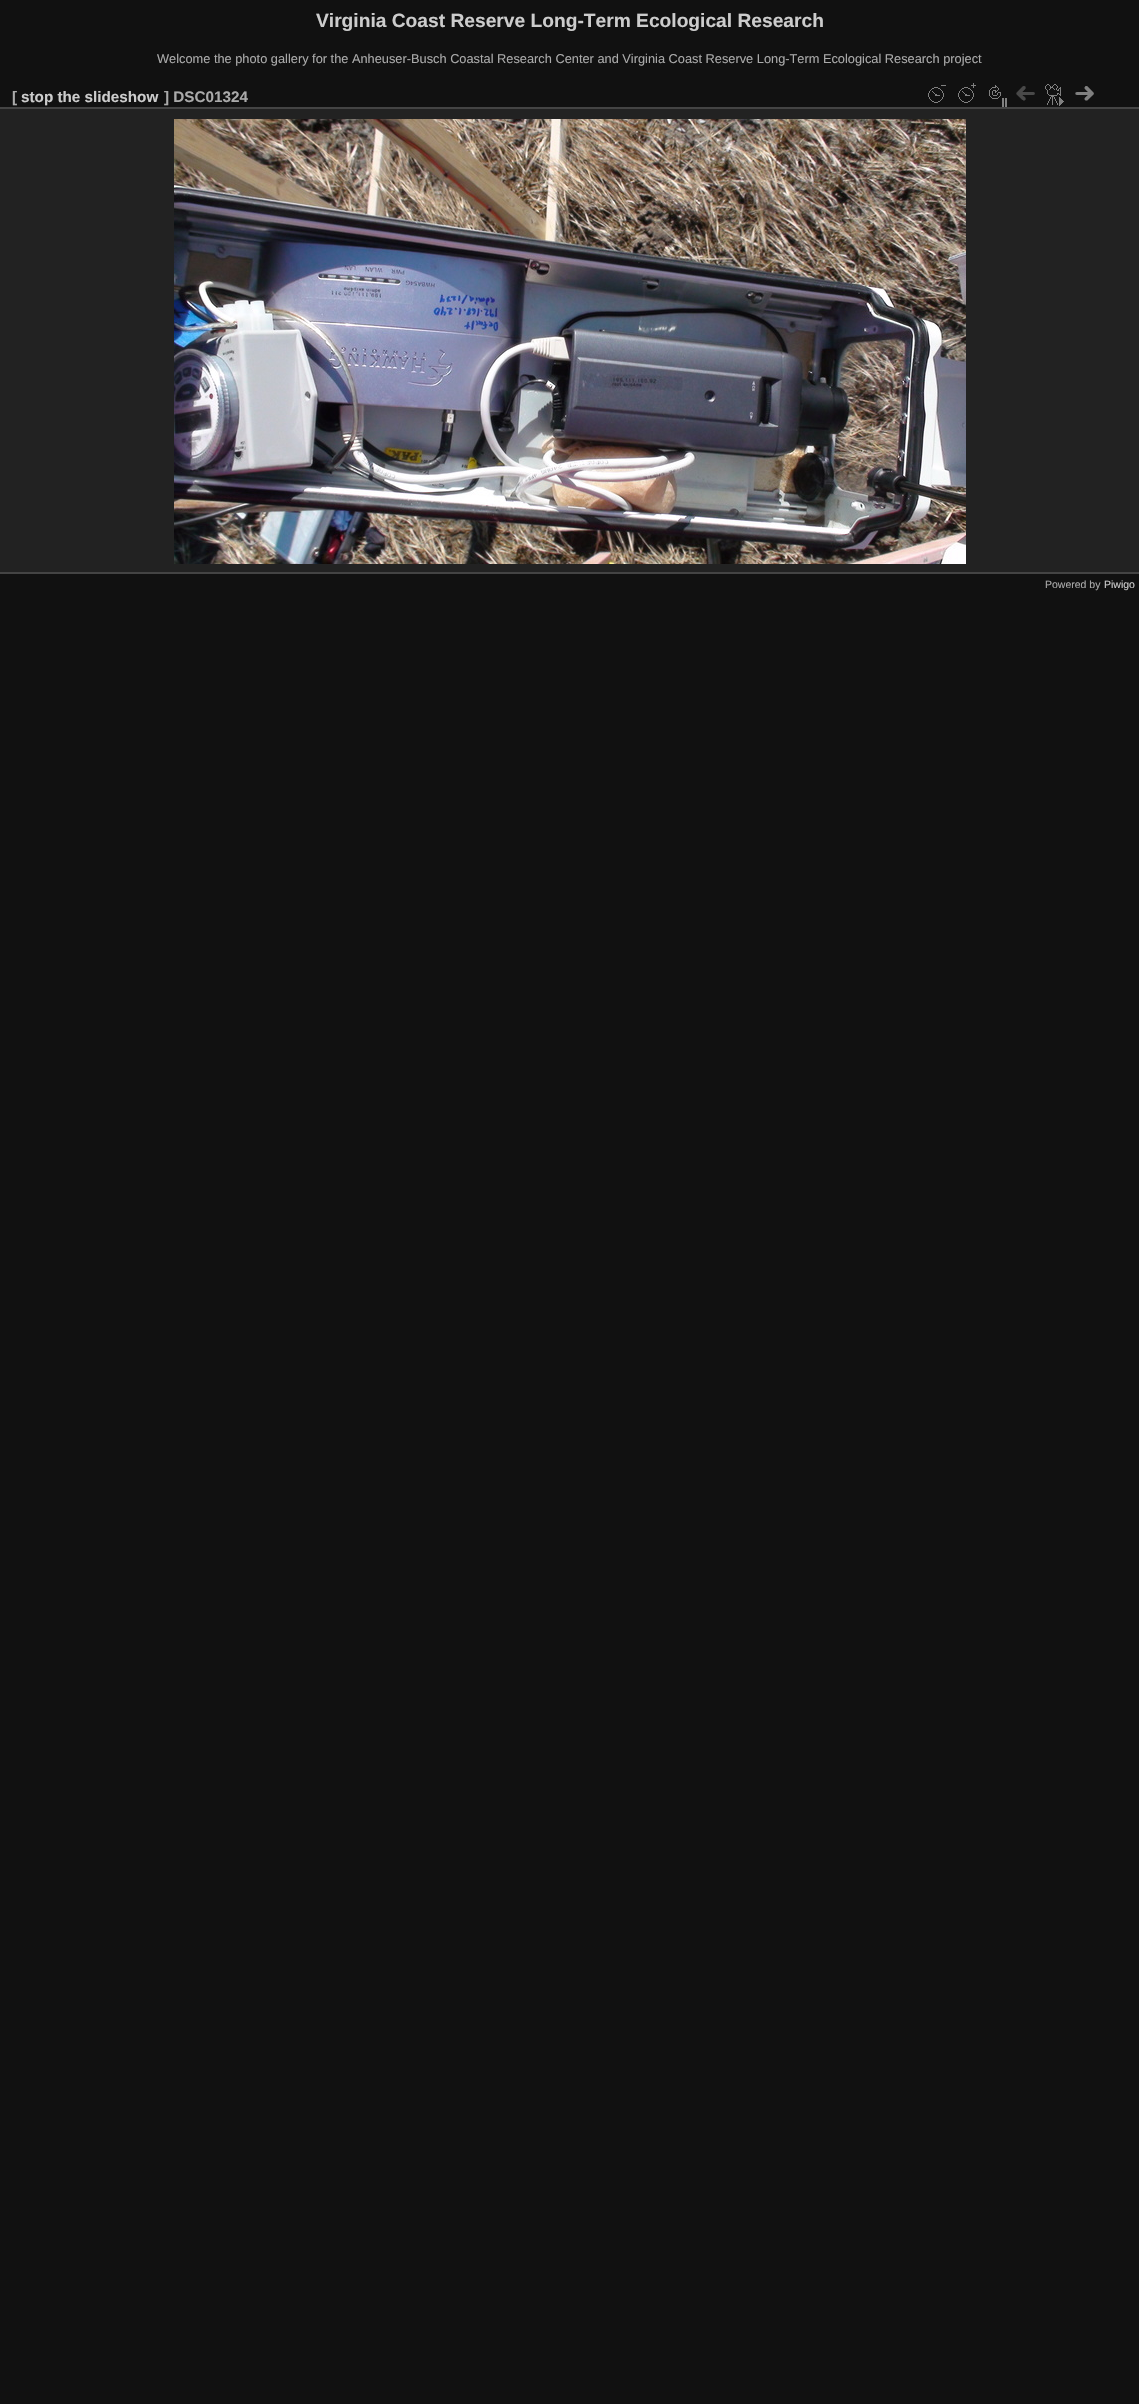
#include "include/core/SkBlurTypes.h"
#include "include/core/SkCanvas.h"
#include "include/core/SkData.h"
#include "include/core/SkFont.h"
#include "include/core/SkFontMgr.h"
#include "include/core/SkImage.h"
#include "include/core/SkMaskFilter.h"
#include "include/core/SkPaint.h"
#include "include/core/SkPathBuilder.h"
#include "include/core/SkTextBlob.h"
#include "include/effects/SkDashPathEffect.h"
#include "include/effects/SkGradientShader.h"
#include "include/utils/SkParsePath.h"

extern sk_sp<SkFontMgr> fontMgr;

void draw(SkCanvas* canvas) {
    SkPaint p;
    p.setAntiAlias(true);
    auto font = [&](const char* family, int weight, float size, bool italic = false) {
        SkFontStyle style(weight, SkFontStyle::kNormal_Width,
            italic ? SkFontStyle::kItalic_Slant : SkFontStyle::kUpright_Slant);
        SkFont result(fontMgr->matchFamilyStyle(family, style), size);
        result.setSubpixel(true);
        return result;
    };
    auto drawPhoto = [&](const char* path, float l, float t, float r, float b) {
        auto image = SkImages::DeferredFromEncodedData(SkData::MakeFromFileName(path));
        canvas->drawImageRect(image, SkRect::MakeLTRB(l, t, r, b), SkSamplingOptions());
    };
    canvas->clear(0xFF111111);
    auto font1 = font("Liberation Sans", 700, 19.2f);
    p.setColor(0xFFCCCCCC);
    canvas->drawString("Virginia Coast Reserve Long-Term Ecological Research", 316, 27, font1, p);
    auto font2 = font("Liberation Sans", 400, 12.8f);
    p.setColor(0xFFAAAAAA);
    canvas->drawString("Welcome the photo gallery for the Anheuser-Busch Coastal Research Center and Virginia Coast Reserve Long-Term Ecological Research project", 157, 63, font2, p);
    p.setColor(0xFF444444);
    canvas->drawRect(SkRect::MakeLTRB(0, 107, 1139, 109), p);
    auto font3 = font("Liberation Sans", 700, 15.25f);
    p.setColor(0xFFAAAAAA);
    canvas->drawString("[", 12, 102, font3, p);
    p.setColor(0xFFCCCCCC);
    canvas->drawString("stop the slideshow", 21, 102, font3, p);
    p.setColor(0xFFAAAAAA);
    canvas->drawString("] DSC01324", 164, 102, font3, p);
    drawPhoto("media/1.png", 928, 85, 946, 103);
    drawPhoto("media/2.png", 958, 83, 976, 103);
    drawPhoto("media/3.png", 989, 85, 1007, 107);
    drawPhoto("media/4.png", 1016, 86, 1035, 101);
    drawPhoto("media/5.png", 1045, 84, 1064, 106);
    drawPhoto("media/6.png", 1075, 86, 1094, 101);
    p.setColor(0xFF222222);
    canvas->drawRect(SkRect::MakeLTRB(0, 109, 1139, 572), p);
    p.setColor(0xFF444444);
    canvas->drawRect(SkRect::MakeLTRB(0, 572, 1139, 574), p);
    drawPhoto("media/7.png", 174, 119, 966, 564);
    auto font4 = font("Liberation Sans", 400, 10.5f);
    p.setColor(0xFFAAAAAA);
    canvas->drawString("Powered by", 1045, 588, font4, p);
    p.setColor(0xFFCCCCCC);
    canvas->drawString("Piwigo", 1104, 588, font4, p);
}
